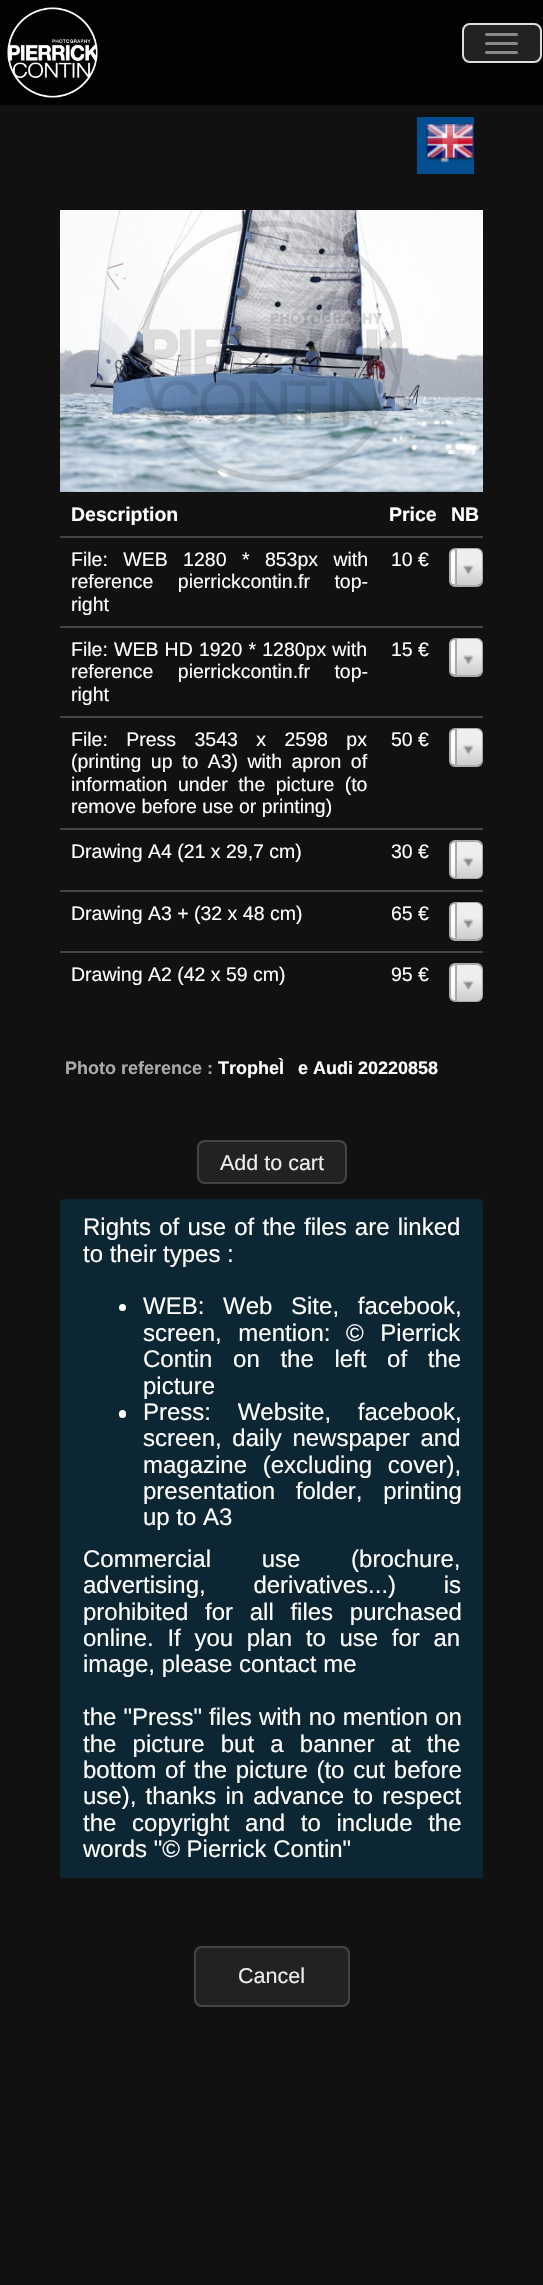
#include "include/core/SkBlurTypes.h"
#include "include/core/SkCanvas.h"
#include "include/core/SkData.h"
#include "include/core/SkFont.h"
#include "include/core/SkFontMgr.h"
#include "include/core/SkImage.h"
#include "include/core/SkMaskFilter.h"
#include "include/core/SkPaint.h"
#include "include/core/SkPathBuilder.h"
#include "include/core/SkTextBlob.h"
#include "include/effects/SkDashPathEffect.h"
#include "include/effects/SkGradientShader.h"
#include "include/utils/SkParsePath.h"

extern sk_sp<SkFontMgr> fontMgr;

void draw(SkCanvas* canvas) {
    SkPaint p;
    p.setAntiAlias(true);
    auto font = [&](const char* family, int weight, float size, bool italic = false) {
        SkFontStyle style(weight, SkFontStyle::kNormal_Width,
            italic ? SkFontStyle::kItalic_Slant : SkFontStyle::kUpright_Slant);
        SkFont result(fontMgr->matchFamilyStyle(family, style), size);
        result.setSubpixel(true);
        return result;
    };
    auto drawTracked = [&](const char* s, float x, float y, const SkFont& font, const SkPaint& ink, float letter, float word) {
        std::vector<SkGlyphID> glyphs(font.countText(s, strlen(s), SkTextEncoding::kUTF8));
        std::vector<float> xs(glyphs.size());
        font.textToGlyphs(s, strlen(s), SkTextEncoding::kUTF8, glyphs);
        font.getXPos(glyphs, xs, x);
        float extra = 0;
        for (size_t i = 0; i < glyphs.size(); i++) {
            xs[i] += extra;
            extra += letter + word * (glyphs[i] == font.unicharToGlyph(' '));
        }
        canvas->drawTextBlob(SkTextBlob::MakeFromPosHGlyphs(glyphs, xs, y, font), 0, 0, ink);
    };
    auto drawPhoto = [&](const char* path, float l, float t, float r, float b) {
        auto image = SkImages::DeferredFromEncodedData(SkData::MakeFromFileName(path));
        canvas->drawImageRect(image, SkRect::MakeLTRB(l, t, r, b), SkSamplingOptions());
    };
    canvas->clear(0xFF111111);
    p.setColor(0xFF020202);
    canvas->drawRect(SkRect::MakeLTRB(0, 0, 543, 105), p);
    drawPhoto("media/1.png", 7, 7, 98, 98);
    drawPhoto("media/2.png", 462, 22, 542, 63);
    p.setStyle(SkPaint::kStroke_Style);
    p.setStrokeWidth(2);
    p.setColor(0xFFDDDDDD);
    canvas->drawRoundRect(SkRect::MakeLTRB(463, 24, 541, 62), 7, 7, p);
    p.setStyle(SkPaint::kFill_Style);
    p.setColor(0xFF888888);
    canvas->drawRoundRect(SkRect::MakeLTRB(485, 33, 518, 36), 1.5f, 1.5f, p);
    canvas->drawRoundRect(SkRect::MakeLTRB(485, 42, 518, 45), 1.5f, 1.5f, p);
    canvas->drawRoundRect(SkRect::MakeLTRB(485, 51, 518, 54), 1.5f, 1.5f, p);
    drawPhoto("media/3.png", 417, 117, 474, 174);
    drawPhoto("media/4.png", 426, 123, 474, 161);
    drawPhoto("media/5.png", 426, 123, 474, 161);
    drawPhoto("media/6.png", 60, 210, 483, 492);
    auto font1 = font("Liberation Sans", 700, 19.5f);
    p.setColor(0xFFFFFFFF);
    {
        const struct { const char* s; float x, y; } items[] = {
            {"Description", 71, 521},
            {"Price", 389, 521},
            {"NB", 451, 521},
        };
        for (auto [s, x, y] : items) {
            canvas->drawString(s, x, y, font1, p);
        }
    }
    p.setColor(0xFF444444);
    canvas->drawRect(SkRect::MakeLTRB(60, 536, 483, 538), p);
    auto font2 = font("Liberation Sans", 400, 19.5f);
    p.setColor(0xFFFFFFFF);
    drawTracked("File: WEB 1280 * 853px with", 71, 566, font2, p, 0, 10);
    drawTracked("reference pierrickcontin.fr top-", 71, 588, font2, p, 0, 19);
    canvas->drawString("right", 71, 611, font2, p);
    canvas->drawString("10 €", 391, 566, font2, p);
    {
        const SkColor colors[] = {0xFFEEEEEE, 0xFFFFFFFF};
        const float stops[] = {0, 0.5f};
        const SkPoint ends[] = {{450, 585}, {450, 549}};
        p.setShader(SkGradientShader::MakeLinear(ends, colors, stops, 2, SkTileMode::kClamp));
        p.setAlpha(255);
    }
    canvas->drawRoundRect(SkRect::MakeLTRB(450, 549, 482, 585), 5, 5, p);
    p.setStyle(SkPaint::kStroke_Style);
    p.setShader(nullptr);
    p.setColor(0xFFAAAAAA);
    canvas->drawRoundRect(SkRect::MakeLTRB(450, 549, 482, 586), 5, 5, p);
    canvas->save();
    canvas->clipPath(SkPathBuilder().moveTo(455, 549).lineTo(477, 549).cubicTo(480, 549, 482, 551, 482, 554).lineTo(482, 580).cubicTo(482, 583, 480, 585, 477, 585).lineTo(455, 585).cubicTo(452, 585, 450, 583, 450, 580).lineTo(450, 554).cubicTo(450, 551, 452, 549, 455, 549).close().detach(), true);
    p.setStyle(SkPaint::kFill_Style);
    {
        const SkColor colors[] = {0xFFCCCCCC, 0xFFEEEEEE};
        const float stops[] = {0, 0.6f};
        const SkPoint ends[] = {{456, 585}, {456, 549}};
        p.setShader(SkGradientShader::MakeLinear(ends, colors, stops, 2, SkTileMode::kClamp));
        p.setAlpha(255);
    }
    canvas->drawPath(SkPathBuilder().moveTo(455, 549).lineTo(476, 549).cubicTo(479.5f, 549, 482, 551.5f, 482, 555).lineTo(482, 579).cubicTo(482, 582.5f, 479.5f, 585, 476, 585).lineTo(455, 585).close().detach(), p);
    canvas->restore();
    p.setShader(nullptr);
    p.setColor(0xFFAAAAAA);
    canvas->drawRect(SkRect::MakeLTRB(455, 549, 457, 585), p);
    drawPhoto("media/7.png", 463, 565, 474, 575);
    p.setColor(0xFF444444);
    canvas->drawRect(SkRect::MakeLTRB(60, 626, 483, 628), p);
    p.setColor(0xFFFFFFFF);
    drawTracked("File: WEB HD 1920 * 1280px with", 71, 656, font2, p, 0, 0.75f);
    drawTracked("reference pierrickcontin.fr top-", 71, 678, font2, p, 0, 19);
    canvas->drawString("right", 71, 701, font2, p);
    canvas->drawString("15 €", 391, 656, font2, p);
    {
        const SkColor colors[] = {0xFFEEEEEE, 0xFFFFFFFF};
        const float stops[] = {0, 0.5f};
        const SkPoint ends[] = {{450, 675}, {450, 639}};
        p.setShader(SkGradientShader::MakeLinear(ends, colors, stops, 2, SkTileMode::kClamp));
        p.setAlpha(255);
    }
    canvas->drawRoundRect(SkRect::MakeLTRB(450, 639, 482, 675), 5, 5, p);
    p.setStyle(SkPaint::kStroke_Style);
    p.setShader(nullptr);
    p.setColor(0xFFAAAAAA);
    canvas->drawRoundRect(SkRect::MakeLTRB(450, 639, 482, 676), 5, 5, p);
    canvas->save();
    canvas->clipPath(SkPathBuilder().moveTo(455, 639).lineTo(477, 639).cubicTo(480, 639, 482, 641, 482, 644).lineTo(482, 670).cubicTo(482, 673, 480, 675, 477, 675).lineTo(455, 675).cubicTo(452, 675, 450, 673, 450, 670).lineTo(450, 644).cubicTo(450, 641, 452, 639, 455, 639).close().detach(), true);
    p.setStyle(SkPaint::kFill_Style);
    {
        const SkColor colors[] = {0xFFCCCCCC, 0xFFEEEEEE};
        const float stops[] = {0, 0.6f};
        const SkPoint ends[] = {{456, 675}, {456, 639}};
        p.setShader(SkGradientShader::MakeLinear(ends, colors, stops, 2, SkTileMode::kClamp));
        p.setAlpha(255);
    }
    canvas->drawPath(SkPathBuilder().moveTo(455, 639).lineTo(476, 639).cubicTo(479.5f, 639, 482, 641.5f, 482, 645).lineTo(482, 669).cubicTo(482, 672.5f, 479.5f, 675, 476, 675).lineTo(455, 675).close().detach(), p);
    canvas->restore();
    p.setShader(nullptr);
    p.setColor(0xFFAAAAAA);
    canvas->drawRect(SkRect::MakeLTRB(455, 639, 457, 675), p);
    drawPhoto("media/7.png", 463, 655, 474, 665);
    p.setColor(0xFF444444);
    canvas->drawRect(SkRect::MakeLTRB(60, 716, 483, 718), p);
    p.setColor(0xFFFFFFFF);
    drawTracked("File: Press 3543 x 2598 px", 71, 746, font2, p, 0, 13);
    drawTracked("(printing up to A3) with apron of", 71, 768, font2, p, 0, 4);
    drawTracked("information under the picture (to", 71, 791, font2, p, 0, 5);
    canvas->drawString("remove before use or printing)", 71, 813, font2, p);
    canvas->drawString("50 €", 391, 746, font2, p);
    {
        const SkColor colors[] = {0xFFEEEEEE, 0xFFFFFFFF};
        const float stops[] = {0, 0.5f};
        const SkPoint ends[] = {{450, 765}, {450, 729}};
        p.setShader(SkGradientShader::MakeLinear(ends, colors, stops, 2, SkTileMode::kClamp));
        p.setAlpha(255);
    }
    canvas->drawRoundRect(SkRect::MakeLTRB(450, 729, 482, 765), 5, 5, p);
    p.setStyle(SkPaint::kStroke_Style);
    p.setShader(nullptr);
    p.setColor(0xFFAAAAAA);
    canvas->drawRoundRect(SkRect::MakeLTRB(450, 729, 482, 766), 5, 5, p);
    canvas->save();
    canvas->clipPath(SkPathBuilder().moveTo(455, 729).lineTo(477, 729).cubicTo(480, 729, 482, 731, 482, 734).lineTo(482, 760).cubicTo(482, 763, 480, 765, 477, 765).lineTo(455, 765).cubicTo(452, 765, 450, 763, 450, 760).lineTo(450, 734).cubicTo(450, 731, 452, 729, 455, 729).close().detach(), true);
    p.setStyle(SkPaint::kFill_Style);
    {
        const SkColor colors[] = {0xFFCCCCCC, 0xFFEEEEEE};
        const float stops[] = {0, 0.6f};
        const SkPoint ends[] = {{456, 765}, {456, 729}};
        p.setShader(SkGradientShader::MakeLinear(ends, colors, stops, 2, SkTileMode::kClamp));
        p.setAlpha(255);
    }
    canvas->drawPath(SkPathBuilder().moveTo(455, 729).lineTo(476, 729).cubicTo(479.5f, 729, 482, 731.5f, 482, 735).lineTo(482, 759).cubicTo(482, 762.5f, 479.5f, 765, 476, 765).lineTo(455, 765).close().detach(), p);
    canvas->restore();
    p.setShader(nullptr);
    p.setColor(0xFFAAAAAA);
    canvas->drawRect(SkRect::MakeLTRB(455, 729, 457, 765), p);
    drawPhoto("media/7.png", 463, 745, 474, 755);
    p.setColor(0xFF444444);
    canvas->drawRect(SkRect::MakeLTRB(60, 828, 483, 830), p);
    p.setColor(0xFFFFFFFF);
    canvas->drawString("Drawing A4 (21 x 29,7 cm)", 71, 858, font2, p);
    canvas->drawString("30 €", 391, 858, font2, p);
    {
        const SkColor colors[] = {0xFFEEEEEE, 0xFFFFFFFF};
        const float stops[] = {0, 0.5f};
        const SkPoint ends[] = {{450, 878}, {450, 842}};
        p.setShader(SkGradientShader::MakeLinear(ends, colors, stops, 2, SkTileMode::kClamp));
        p.setAlpha(255);
    }
    canvas->drawRoundRect(SkRect::MakeLTRB(450, 842, 482, 878), 5, 5, p);
    p.setStyle(SkPaint::kStroke_Style);
    p.setShader(nullptr);
    p.setColor(0xFFAAAAAA);
    canvas->drawRoundRect(SkRect::MakeLTRB(450, 841, 482, 878), 5, 5, p);
    canvas->save();
    canvas->clipPath(SkPathBuilder().moveTo(455, 842).lineTo(477, 842).cubicTo(480, 842, 482, 844, 482, 847).lineTo(482, 873).cubicTo(482, 876, 480, 878, 477, 878).lineTo(455, 878).cubicTo(452, 878, 450, 876, 450, 873).lineTo(450, 847).cubicTo(450, 844, 452, 842, 455, 842).close().detach(), true);
    p.setStyle(SkPaint::kFill_Style);
    {
        const SkColor colors[] = {0xFFCCCCCC, 0xFFEEEEEE};
        const float stops[] = {0, 0.6f};
        const SkPoint ends[] = {{456, 878}, {456, 842}};
        p.setShader(SkGradientShader::MakeLinear(ends, colors, stops, 2, SkTileMode::kClamp));
        p.setAlpha(255);
    }
    canvas->drawPath(SkPathBuilder().moveTo(455, 842).lineTo(476, 842).cubicTo(479.5f, 842, 482, 844.5f, 482, 848).lineTo(482, 872).cubicTo(482, 875.5f, 479.5f, 878, 476, 878).lineTo(455, 878).close().detach(), p);
    canvas->restore();
    p.setShader(nullptr);
    p.setColor(0xFFAAAAAA);
    canvas->drawRect(SkRect::MakeLTRB(455, 842, 457, 878), p);
    drawPhoto("media/8.png", 463, 857, 474, 867);
    p.setColor(0xFF444444);
    canvas->drawRect(SkRect::MakeLTRB(60, 890, 483, 892), p);
    p.setColor(0xFFFFFFFF);
    canvas->drawString("Drawing A3 + (32 x 48 cm)", 71, 920, font2, p);
    canvas->drawString("65 €", 391, 920, font2, p);
    {
        const SkColor colors[] = {0xFFEEEEEE, 0xFFFFFFFF};
        const float stops[] = {0, 0.5f};
        const SkPoint ends[] = {{450, 939}, {450, 903}};
        p.setShader(SkGradientShader::MakeLinear(ends, colors, stops, 2, SkTileMode::kClamp));
        p.setAlpha(255);
    }
    canvas->drawRoundRect(SkRect::MakeLTRB(450, 903, 482, 939), 5, 5, p);
    p.setStyle(SkPaint::kStroke_Style);
    p.setShader(nullptr);
    p.setColor(0xFFAAAAAA);
    canvas->drawRoundRect(SkRect::MakeLTRB(450, 903, 482, 940), 5, 5, p);
    canvas->save();
    canvas->clipPath(SkPathBuilder().moveTo(455, 903).lineTo(477, 903).cubicTo(480, 903, 482, 905, 482, 908).lineTo(482, 934).cubicTo(482, 937, 480, 939, 477, 939).lineTo(455, 939).cubicTo(452, 939, 450, 937, 450, 934).lineTo(450, 908).cubicTo(450, 905, 452, 903, 455, 903).close().detach(), true);
    p.setStyle(SkPaint::kFill_Style);
    {
        const SkColor colors[] = {0xFFCCCCCC, 0xFFEEEEEE};
        const float stops[] = {0, 0.6f};
        const SkPoint ends[] = {{456, 939}, {456, 903}};
        p.setShader(SkGradientShader::MakeLinear(ends, colors, stops, 2, SkTileMode::kClamp));
        p.setAlpha(255);
    }
    canvas->drawPath(SkPathBuilder().moveTo(455, 903).lineTo(476, 903).cubicTo(479.5f, 903, 482, 905.5f, 482, 909).lineTo(482, 933).cubicTo(482, 936.5f, 479.5f, 939, 476, 939).lineTo(455, 939).close().detach(), p);
    canvas->restore();
    p.setShader(nullptr);
    p.setColor(0xFFAAAAAA);
    canvas->drawRect(SkRect::MakeLTRB(455, 903, 457, 939), p);
    drawPhoto("media/7.png", 463, 919, 474, 929);
    p.setColor(0xFF444444);
    canvas->drawRect(SkRect::MakeLTRB(60, 951, 483, 953), p);
    p.setColor(0xFFFFFFFF);
    canvas->drawString("Drawing A2 (42 x 59 cm)", 71, 981, font2, p);
    canvas->drawString("95 €", 391, 981, font2, p);
    {
        const SkColor colors[] = {0xFFEEEEEE, 0xFFFFFFFF};
        const float stops[] = {0, 0.5f};
        const SkPoint ends[] = {{450, 1001}, {450, 965}};
        p.setShader(SkGradientShader::MakeLinear(ends, colors, stops, 2, SkTileMode::kClamp));
        p.setAlpha(255);
    }
    canvas->drawRoundRect(SkRect::MakeLTRB(450, 965, 482, 1001), 5, 5, p);
    p.setStyle(SkPaint::kStroke_Style);
    p.setShader(nullptr);
    p.setColor(0xFFAAAAAA);
    canvas->drawRoundRect(SkRect::MakeLTRB(450, 964, 482, 1001), 5, 5, p);
    canvas->save();
    canvas->clipPath(SkPathBuilder().moveTo(455, 965).lineTo(477, 965).cubicTo(480, 965, 482, 967, 482, 970).lineTo(482, 996).cubicTo(482, 999, 480, 1001, 477, 1001).lineTo(455, 1001).cubicTo(452, 1001, 450, 999, 450, 996).lineTo(450, 970).cubicTo(450, 967, 452, 965, 455, 965).close().detach(), true);
    p.setStyle(SkPaint::kFill_Style);
    {
        const SkColor colors[] = {0xFFCCCCCC, 0xFFEEEEEE};
        const float stops[] = {0, 0.6f};
        const SkPoint ends[] = {{456, 1001}, {456, 965}};
        p.setShader(SkGradientShader::MakeLinear(ends, colors, stops, 2, SkTileMode::kClamp));
        p.setAlpha(255);
    }
    canvas->drawPath(SkPathBuilder().moveTo(455, 965).lineTo(476, 965).cubicTo(479.5f, 965, 482, 967.5f, 482, 971).lineTo(482, 995).cubicTo(482, 998.5f, 479.5f, 1001, 476, 1001).lineTo(455, 1001).close().detach(), p);
    canvas->restore();
    p.setShader(nullptr);
    p.setColor(0xFFAAAAAA);
    canvas->drawRect(SkRect::MakeLTRB(455, 965, 457, 1001), p);
    drawPhoto("media/8.png", 463, 980, 474, 990);
    auto font3 = font("Liberation Sans", 700, 18);
    canvas->drawString("Photo reference :", 65, 1074, font3, p);
    p.setColor(0xFFFFFFFF);
    canvas->drawString("TropheÌ", 218, 1074, font3, p);
    canvas->drawString("e Audi 20220858", 298, 1074, font3, p);
    p.setColor(0xFF222222);
    canvas->drawRoundRect(SkRect::MakeLTRB(197, 1140, 347, 1184), 8, 8, p);
    drawPhoto("media/9.png", 196, 1140, 342, 1183);
    p.setStyle(SkPaint::kStroke_Style);
    p.setColor(0xFF444444);
    canvas->drawRoundRect(SkRect::MakeLTRB(198, 1141, 346, 1183), 7, 7, p);
    auto font4 = font("Liberation Sans", 400, 21.5f);
    p.setStyle(SkPaint::kFill_Style);
    p.setColor(0xFFEEEEEE);
    canvas->drawString("Add to cart", 220, 1170, font4, p);
    p.setColor(0xFF0D2633);
    canvas->drawPath(SkPathBuilder().moveTo(65, 1199).lineTo(478, 1199).cubicTo(481, 1199, 483, 1201, 483, 1204).lineTo(483, 1878).lineTo(60, 1878).lineTo(60, 1204).cubicTo(60, 1201, 62, 1199, 65, 1199).close().detach(), p);
    auto font5 = font("Liberation Sans", 400, 24);
    p.setColor(0xFFFFFFFF);
    drawTracked("Rights of use of the files are linked", 83, 1235, font5, p, 0, 1.5f);
    canvas->drawString("to their types :", 83, 1262, font5, p);
    canvas->drawCircle(122.5f, 1307.5f, 3.5f, p);
    drawTracked("WEB: Web Site, facebook,", 143, 1314, font5, p, 0, 12);
    drawTracked("screen, mention:", 143, 1341, font5, p, 0, 10);
    drawTracked("© Pierrick", 346, 1341, font5, p, 0, 10);
    drawTracked("Contin on the left of the", 143, 1367, font5, p, 0, 14);
    canvas->drawString("picture", 143, 1394, font5, p);
    canvas->drawRoundRect(SkRect::MakeLTRB(119, 1410, 126, 1418), 3.5f, 3.5f, p);
    drawTracked("Press: Website, facebook,", 143, 1420, font5, p, 0, 20);
    drawTracked("screen, daily newspaper and", 143, 1446, font5, p, 0, 4);
    drawTracked("magazine (excluding cover),", 143, 1473, font5, p, 0, 9);
    drawTracked("presentation folder, printing", 143, 1499, font5, p, 0, 14);
    canvas->drawString("up to A3", 143, 1525, font5, p);
    drawTracked("Commercial use (brochure,", 83, 1567, font5, p, 0, 44);
    drawTracked("advertising, derivatives...) is", 83, 1593, font5, p, 0, 41);
    drawTracked("prohibited for all files purchased", 83, 1620, font5, p, 0, 10);
    drawTracked("online. If you plan to use for an", 83, 1646, font5, p, 0, 7);
    canvas->drawString("image, please contact me", 83, 1672, font5, p);
    drawTracked("the \"Press\" files with no mention on", 83, 1725, font5, p, 0, 0.5f);
    drawTracked("the picture but a banner at the", 83, 1752, font5, p, 0, 9.5f);
    drawTracked("bottom of the picture (to cut before", 83, 1778, font5, p, 0, 2);
    drawTracked("use), thanks in advance to respect", 83, 1804, font5, p, 0, 2.5f);
    drawTracked("the copyright and to include the", 83, 1831, font5, p, 0, 9);
    canvas->drawString("words \"© Pierrick Contin\"", 83, 1857, font5, p);
    p.setColor(0xFF222222);
    canvas->drawRoundRect(SkRect::MakeLTRB(194, 1946, 350, 2007), 8, 8, p);
    drawPhoto("media/10.png", 193, 1945, 347, 2007);
    p.setStyle(SkPaint::kStroke_Style);
    p.setColor(0xFF444444);
    canvas->drawRoundRect(SkRect::MakeLTRB(195, 1947, 349, 2006), 7, 7, p);
    p.setStyle(SkPaint::kFill_Style);
    p.setColor(0xFFEEEEEE);
    canvas->drawString("Cancel", 238, 1983, font4, p);
}
